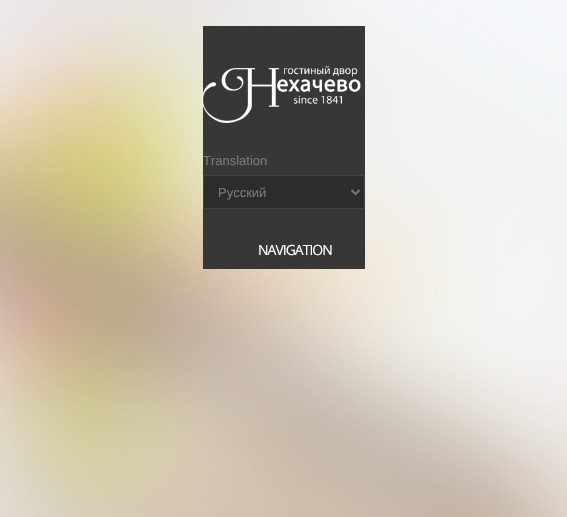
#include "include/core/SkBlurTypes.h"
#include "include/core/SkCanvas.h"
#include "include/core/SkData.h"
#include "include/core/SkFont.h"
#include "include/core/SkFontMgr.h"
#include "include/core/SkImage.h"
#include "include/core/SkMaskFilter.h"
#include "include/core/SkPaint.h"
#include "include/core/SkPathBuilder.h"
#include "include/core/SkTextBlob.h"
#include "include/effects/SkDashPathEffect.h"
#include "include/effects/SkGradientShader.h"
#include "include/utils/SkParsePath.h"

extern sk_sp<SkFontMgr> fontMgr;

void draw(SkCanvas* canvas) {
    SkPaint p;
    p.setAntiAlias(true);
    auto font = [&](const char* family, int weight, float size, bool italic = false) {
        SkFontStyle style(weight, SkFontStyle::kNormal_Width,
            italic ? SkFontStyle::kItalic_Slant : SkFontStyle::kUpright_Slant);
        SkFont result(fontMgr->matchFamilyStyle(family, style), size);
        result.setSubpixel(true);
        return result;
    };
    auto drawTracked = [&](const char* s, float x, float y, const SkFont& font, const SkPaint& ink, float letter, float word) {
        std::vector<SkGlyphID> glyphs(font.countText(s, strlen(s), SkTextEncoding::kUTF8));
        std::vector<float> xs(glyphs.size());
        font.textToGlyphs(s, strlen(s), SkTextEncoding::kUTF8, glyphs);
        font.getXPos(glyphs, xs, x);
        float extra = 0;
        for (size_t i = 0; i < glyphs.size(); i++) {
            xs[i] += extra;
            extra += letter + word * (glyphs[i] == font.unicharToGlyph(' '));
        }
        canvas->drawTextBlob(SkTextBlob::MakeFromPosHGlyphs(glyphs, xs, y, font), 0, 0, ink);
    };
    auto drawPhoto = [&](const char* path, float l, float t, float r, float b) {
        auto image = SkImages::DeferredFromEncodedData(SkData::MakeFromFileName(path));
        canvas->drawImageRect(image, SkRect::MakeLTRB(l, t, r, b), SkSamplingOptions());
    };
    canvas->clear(0xFFE9F0F6);
    drawPhoto("media/1.png", 0, 0, 567, 517);
    p.setColor(0xFF373737);
    canvas->drawRect(SkRect::MakeLTRB(203, 26, 365, 269), p);
    drawPhoto("media/2.png", 202, 66, 361, 123);
    auto font1 = font("Liberation Sans", 400, 13);
    p.setColor(0xFF79797A);
    canvas->drawString("Translation", 203, 165, font1, p);
    p.setColor(0xFF2C2C2C);
    canvas->drawRect(SkRect::MakeLTRB(203.5f, 175.5f, 364.5f, 208.5f), p);
    p.setStyle(SkPaint::kStroke_Style);
    p.setStrokeWidth(1);
    p.setColor(0xFF434343);
    canvas->drawRect(SkRect::MakeLTRB(203.5f, 175.5f, 364.5f, 208.5f), p);
    p.setStrokeWidth(2);
    p.setColor(0xFF757575);
    canvas->drawPath(SkPathBuilder().moveTo(351.5f, 190).lineTo(355.5f, 194).lineTo(359.5f, 190).detach(), p);
    p.setStyle(SkPaint::kFill_Style);
    p.setColor(0xFF79797A);
    canvas->drawString("Русский", 218, 197, font1, p);
    auto font2 = font("Open Sans", 400, 14);
    p.setColor(0xFFFFFFFF);
    drawTracked("NAVIGATION", 258, 255, font2, p, -1, 0);
}
